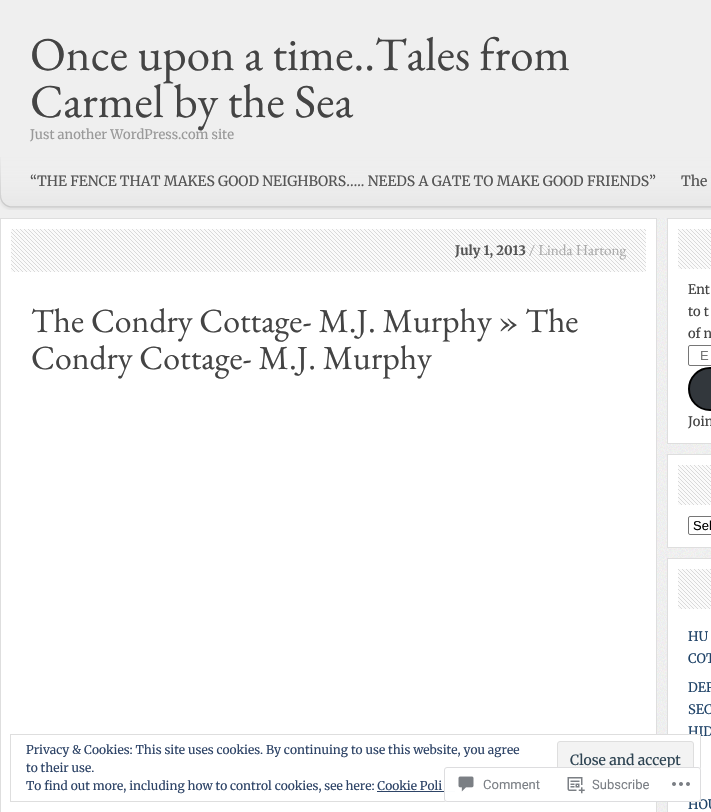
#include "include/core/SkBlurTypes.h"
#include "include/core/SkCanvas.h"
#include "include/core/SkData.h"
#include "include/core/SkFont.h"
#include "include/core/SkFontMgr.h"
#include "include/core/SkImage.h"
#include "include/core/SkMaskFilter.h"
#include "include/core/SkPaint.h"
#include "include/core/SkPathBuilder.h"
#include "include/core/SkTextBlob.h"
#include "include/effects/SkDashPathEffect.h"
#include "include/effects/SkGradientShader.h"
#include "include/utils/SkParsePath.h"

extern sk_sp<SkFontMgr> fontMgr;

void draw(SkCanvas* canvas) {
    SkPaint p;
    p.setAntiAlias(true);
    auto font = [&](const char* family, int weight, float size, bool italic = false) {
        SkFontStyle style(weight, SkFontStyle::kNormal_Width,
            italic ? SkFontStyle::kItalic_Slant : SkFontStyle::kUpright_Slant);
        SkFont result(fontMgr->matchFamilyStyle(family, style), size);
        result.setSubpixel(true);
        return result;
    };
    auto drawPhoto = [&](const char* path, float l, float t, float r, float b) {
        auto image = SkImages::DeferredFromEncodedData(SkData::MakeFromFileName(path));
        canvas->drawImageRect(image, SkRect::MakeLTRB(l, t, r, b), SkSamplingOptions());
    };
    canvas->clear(0xFFFFFFFF);
    drawPhoto("media/1.png", 657, 218, 711, 812);
    p.setColor(0xFFEFEFEF);
    canvas->drawRect(SkRect::MakeLTRB(0, 0, 711, 218), p);
    auto font1 = font("EB Garamond", 400, 47);
    p.setColor(0xFF444444);
    canvas->drawString("Once upon a time..Tales from", 30, 70, font1, p);
    canvas->drawString("Carmel by the Sea", 30, 117, font1, p);
    auto font2 = font("Merriweather", 400, 13);
    p.setColor(0xFF999999);
    canvas->drawString("Just another WordPress.com site", 30, 139, font2, p);
    drawPhoto("media/2.png", 0, 157, 711, 210);
    auto font3 = font("Merriweather", 400, 14);
    p.setColor(0xFF555555);
    canvas->drawString("“THE FENCE THAT MAKES GOOD NEIGHBORS….. NEEDS A GATE TO MAKE GOOD FRIENDS”", 30, 186, font3, p);
    canvas->drawString("The", 681, 186, font3, p);
    p.setStyle(SkPaint::kStroke_Style);
    p.setStrokeWidth(1);
    p.setColor(0xFFDEDEDE);
    canvas->drawRect(SkRect::MakeLTRB(0.5f, 218.5f, 656.5f, 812.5f), p);
    drawPhoto("media/3.png", 11, 229, 646, 272);
    auto font4 = font("Merriweather", 700, 13);
    p.setStyle(SkPaint::kFill_Style);
    p.setColor(0xFF555555);
    canvas->drawString("July 1, 2013", 455, 255, font4, p);
    auto font5 = font("EB Garamond", 400, 15.25f);
    p.setColor(0xFFAAAAAA);
    canvas->drawString("/ Linda Hartong", 529, 255, font5, p);
    auto font6 = font("EB Garamond", 400, 33.75f);
    p.setColor(0xFF444444);
    canvas->drawString("The Condry Cottage- M.J. Murphy » The", 31, 332, font6, p);
    canvas->drawString("Condry Cottage- M.J. Murphy", 31, 369, font6, p);
    p.setColor(0xFFFFFFFF);
    canvas->drawRect(SkRect::MakeLTRB(667.5f, 218.5f, 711.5f, 443.5f), p);
    p.setStyle(SkPaint::kStroke_Style);
    p.setColor(0xFFDEDEDE);
    canvas->drawRect(SkRect::MakeLTRB(667.5f, 218.5f, 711.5f, 443.5f), p);
    drawPhoto("media/4.png", 678, 229, 711, 269);
    p.setStyle(SkPaint::kFill_Style);
    p.setColor(0xFF444444);
    {
        const struct { const char* s; float x, y; } items[] = {
            {"Ent", 688, 294},
            {"to t", 688, 316},
            {"of n", 688, 338},
        };
        for (auto [s, x, y] : items) {
            canvas->drawString(s, x, y, font2, p);
        }
    }
    p.setStyle(SkPaint::kStroke_Style);
    p.setColor(0xFF767676);
    canvas->drawRoundRect(SkRect::MakeLTRB(688.5f, 345.5f, 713.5f, 365.5f), 1.5f, 1.5f, p);
    auto font7 = font("Liberation Sans", 400, 13);
    p.setStyle(SkPaint::kFill_Style);
    p.setColor(0xFF757575);
    canvas->drawString("E", 700, 360, font7, p);
    p.setColor(0xFF32373C);
    canvas->drawRoundRect(SkRect::MakeLTRB(689, 368, 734, 410), 21, 21, p);
    p.setStyle(SkPaint::kStroke_Style);
    p.setStrokeWidth(2);
    p.setColor(0xFF000000);
    canvas->drawRoundRect(SkRect::MakeLTRB(689, 368, 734, 410), 21, 21, p);
    p.setStyle(SkPaint::kFill_Style);
    p.setColor(0xFF444444);
    canvas->drawString("Join", 688, 426, font2, p);
    p.setColor(0xFFFFFFFF);
    canvas->drawRect(SkRect::MakeLTRB(667.5f, 454.5f, 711.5f, 547.5f), p);
    p.setStyle(SkPaint::kStroke_Style);
    p.setStrokeWidth(1);
    p.setColor(0xFFDEDEDE);
    canvas->drawRect(SkRect::MakeLTRB(667.5f, 454.5f, 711.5f, 547.5f), p);
    drawPhoto("media/4.png", 678, 465, 711, 505);
    p.setColor(0xFF767676);
    canvas->drawRoundRect(SkRect::MakeLTRB(688.5f, 516.5f, 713.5f, 534.5f), 1.5f, 1.5f, p);
    p.setStyle(SkPaint::kFill_Style);
    p.setColor(0xFF000000);
    canvas->drawString("Sel", 693, 530, font7, p);
    p.setColor(0xFFFFFFFF);
    canvas->drawRect(SkRect::MakeLTRB(667.5f, 558.5f, 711.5f, 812.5f), p);
    p.setStyle(SkPaint::kStroke_Style);
    p.setColor(0xFFDEDEDE);
    canvas->drawRect(SkRect::MakeLTRB(667.5f, 558.5f, 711.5f, 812.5f), p);
    drawPhoto("media/4.png", 678, 569, 711, 609);
    p.setStyle(SkPaint::kFill_Style);
    p.setColor(0xFF214469);
    {
        const struct { const char* s; float x, y; } items[] = {
            {"HU", 688, 641},
            {"COT", 688, 663},
            {"DER", 688, 692},
            {"SEC", 688, 714},
            {"HID", 688, 736},
            {"HOU", 688, 809},
        };
        for (auto [s, x, y] : items) {
            canvas->drawString(s, x, y, font2, p);
        }
    }
    p.setColor(0xFFFFFFFF);
    canvas->drawRect(SkRect::MakeLTRB(656, 735, 700, 801), p);
    p.setStyle(SkPaint::kStroke_Style);
    p.setColor(0xFFDEDEDE);
    canvas->drawRect(SkRect::MakeLTRB(10.5f, 734.5f, 700.5f, 801.5f), p);
    auto font8 = font("Merriweather", 400, 12);
    p.setStyle(SkPaint::kFill_Style);
    p.setColor(0xFF2E4467);
    canvas->drawString("Privacy & Cookies: This site uses cookies. By continuing to use this website, you agree", 26, 754, font8, p);
    canvas->drawString("to their use.", 26, 772, font8, p);
    p.setColor(0xFFF3F3F3);
    canvas->drawRoundRect(SkRect::MakeLTRB(557.5f, 741.5f, 693.5f, 779.5f), 2.5f, 2.5f, p);
    p.setStyle(SkPaint::kStroke_Style);
    p.setColor(0xFFDEDEDE);
    canvas->drawRoundRect(SkRect::MakeLTRB(557.5f, 741.5f, 693.5f, 779.5f), 2.5f, 2.5f, p);
    p.setStyle(SkPaint::kFill_Style);
    p.setColor(0xFF2E4453);
    canvas->drawString("Close and accept", 570, 765, font3, p);
    p.setColor(0xFF2E4467);
    canvas->drawString("To find out more, including how to control cookies, see here: Cookie Poli", 26, 790, font8, p);
    canvas->drawRect(SkRect::MakeLTRB(377, 791, 455, 792), p);
    p.setColor(0xFAFFFFFF);
    canvas->drawRoundRect(SkRect::MakeLTRB(444, 767, 701, 802), 3, 3, p);
    p.setStyle(SkPaint::kStroke_Style);
    p.setColor(0xFADCDCDE);
    canvas->drawRoundRect(SkRect::MakeLTRB(444.5f, 767.5f, 700.5f, 801.5f), 2.5f, 2.5f, p);
    drawPhoto("media/5.png", 458, 776, 474, 792);
    auto font9 = font("Roboto", 400, 13);
    p.setStyle(SkPaint::kFill_Style);
    p.setColor(0xFF7B7F85);
    canvas->drawString("Comment", 483, 789, font9, p);
    drawPhoto("media/6.png", 567, 777, 585, 794);
    canvas->drawString("Subscribe", 592, 789, font9, p);
    drawPhoto("media/7.png", 672, 782, 690, 786);
}
